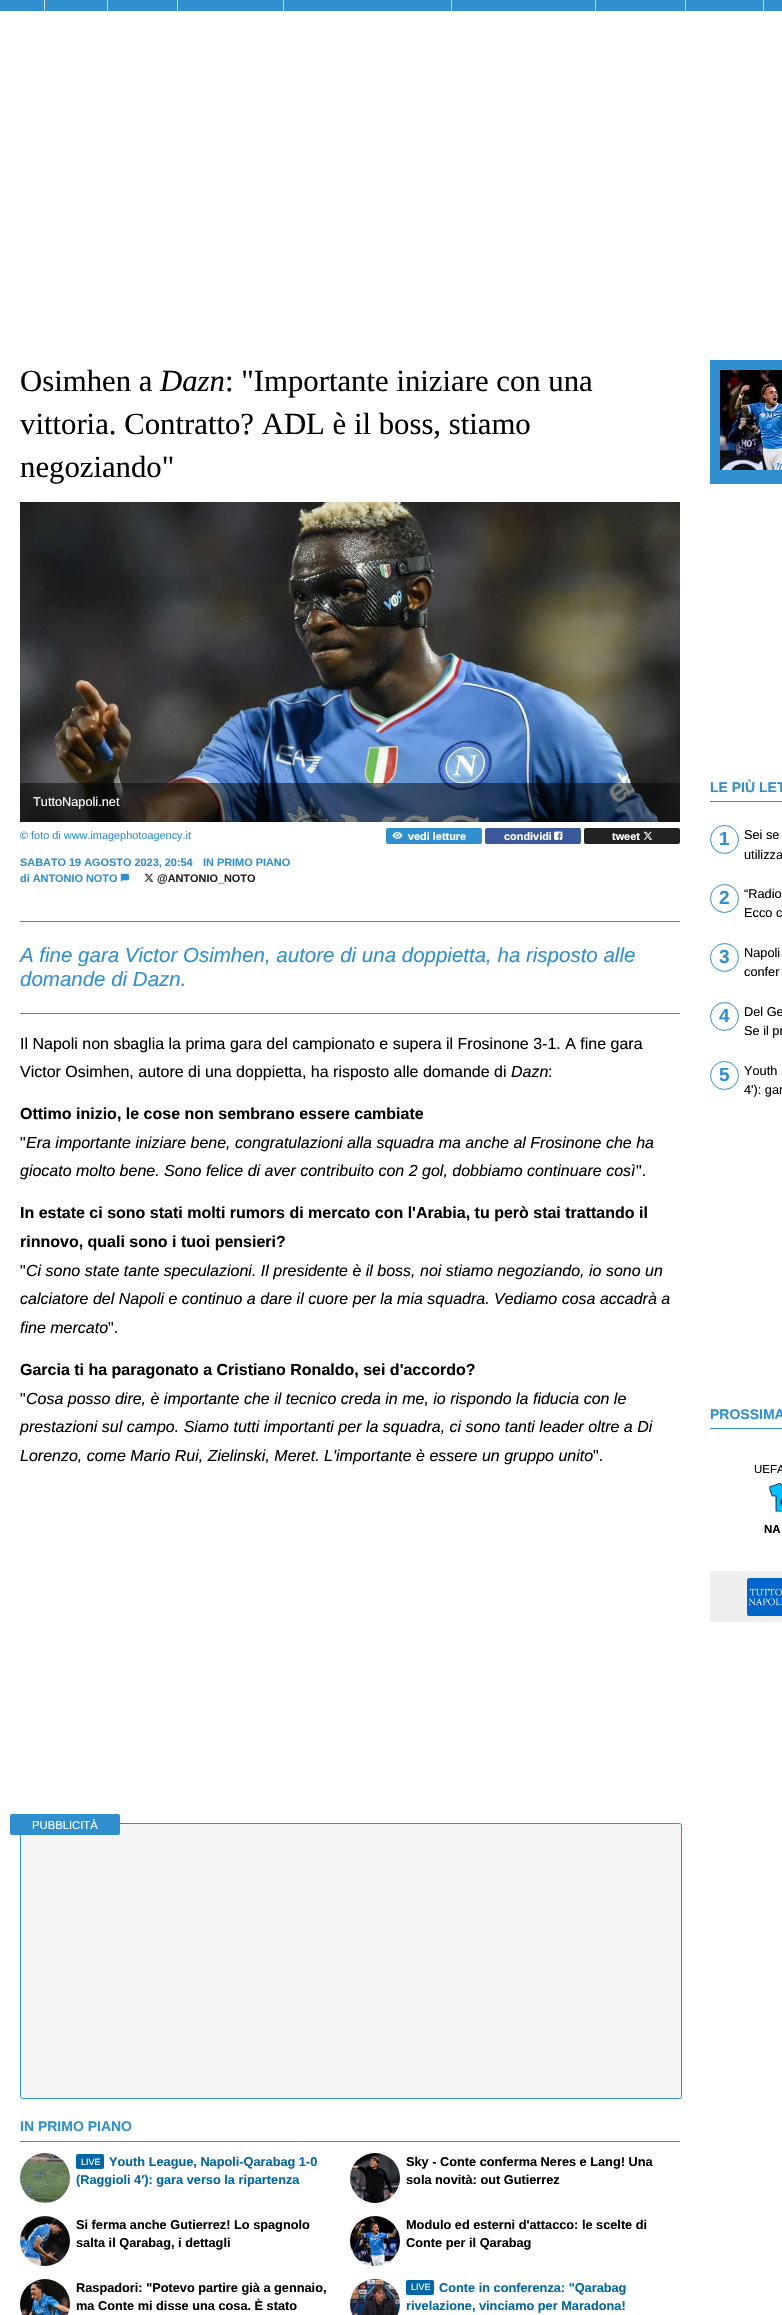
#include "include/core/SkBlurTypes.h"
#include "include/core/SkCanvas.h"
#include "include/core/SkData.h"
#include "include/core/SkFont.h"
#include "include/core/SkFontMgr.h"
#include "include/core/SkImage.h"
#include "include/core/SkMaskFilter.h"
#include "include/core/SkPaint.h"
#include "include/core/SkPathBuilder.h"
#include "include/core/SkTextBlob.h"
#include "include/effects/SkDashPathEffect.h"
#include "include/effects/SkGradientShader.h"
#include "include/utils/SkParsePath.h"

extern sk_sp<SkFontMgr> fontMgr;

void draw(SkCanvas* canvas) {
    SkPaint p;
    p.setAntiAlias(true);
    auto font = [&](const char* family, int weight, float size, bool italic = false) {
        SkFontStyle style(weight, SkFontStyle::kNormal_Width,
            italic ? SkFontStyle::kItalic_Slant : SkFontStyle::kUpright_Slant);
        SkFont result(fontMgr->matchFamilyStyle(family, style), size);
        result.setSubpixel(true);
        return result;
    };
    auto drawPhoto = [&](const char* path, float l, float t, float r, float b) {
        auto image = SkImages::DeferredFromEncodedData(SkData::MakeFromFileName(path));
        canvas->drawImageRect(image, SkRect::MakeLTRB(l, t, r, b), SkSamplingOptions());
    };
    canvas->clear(0xFFFFFFFF);
    {
        const struct { float l, t, r, b; SkColor color; } items[] = {
            {0, 0, 782, 11, 0xFF308FCF},
            {44, 0, 45, 11, 0xFFD6D6D6},
            {107, 0, 108, 11, 0xFFD6D6D6},
            {177, 0, 178, 11, 0xFFD6D6D6},
            {283, 0, 284, 11, 0xFFD6D6D6},
            {451, 0, 452, 11, 0xFFD6D6D6},
            {595, 0, 596, 11, 0xFFD6D6D6},
            {685, 0, 686, 11, 0xFFD6D6D6},
            {763, 0, 764, 11, 0xFFD6D6D6},
        };
        for (auto [l, t, r, b, color] : items) {
            p.setColor(color);
            canvas->drawRect(SkRect::MakeLTRB(l, t, r, b), p);
        }
    }
    auto font1 = font("Liberation Serif", 400, 30.75f);
    p.setColor(0xFF000000);
    canvas->drawString("Osimhen a", 20, 391, font1, p);
    auto font2 = font("Liberation Serif", 400, 30.75f, true);
    canvas->drawString("Dazn", 160, 391, font2, p);
    {
        const struct { const char* s; float x, y; } items[] = {
            {": \"Importante iniziare con una", 225, 391},
            {"vittoria. Contratto? ADL è il boss, stiamo", 20, 434},
            {"negoziando\"", 20, 477},
        };
        for (auto [s, x, y] : items) {
            canvas->drawString(s, x, y, font1, p);
        }
    }
    drawPhoto("media/1.png", 20, 502, 680, 822);
    p.setColor(0x80000000);
    canvas->drawRect(SkRect::MakeLTRB(20, 783, 680, 822), p);
    auto font3 = font("Liberation Sans", 400, 12.75f);
    p.setColor(0xFFFFFFFF);
    canvas->drawString("TuttoNapoli.net", 33, 806, font3, p);
    auto font4 = font("Liberation Sans", 400, 10.9f);
    p.setColor(0xFF308FCF);
    canvas->drawString("© foto di www.imagephotoagency.it", 20, 839, font4, p);
    canvas->drawRoundRect(SkRect::MakeLTRB(386, 828, 482, 844), 2, 2, p);
    drawPhoto("media/2.png", 392, 832, 403, 839);
    auto font5 = font("Liberation Sans", 700, 10.9f);
    p.setColor(0xFFFFFFFF);
    canvas->drawString("vedi letture", 408, 840, font5, p);
    p.setColor(0xFF3B5998);
    canvas->drawRoundRect(SkRect::MakeLTRB(485, 828, 581, 844), 2, 2, p);
    p.setColor(0xFFFFFFFF);
    canvas->drawString("condividi", 504, 840, font5, p);
    drawPhoto("media/3.png", 554, 831, 563, 840);
    p.setColor(0xFF222222);
    canvas->drawRoundRect(SkRect::MakeLTRB(584, 828, 680, 844), 2, 2, p);
    p.setColor(0xFFFFFFFF);
    canvas->drawString("tweet", 612, 840, font5, p);
    drawPhoto("media/4.png", 643, 831, 653, 840);
    p.setColor(0xFF308FCF);
    {
        const struct { const char* s; float x, y; } items[] = {
            {"SABATO 19 AGOSTO 2023, 20:54", 20, 866},
            {"IN PRIMO PIANO", 203, 866},
            {"di ANTONIO NOTO", 20, 882},
        };
        for (auto [s, x, y] : items) {
            canvas->drawString(s, x, y, font5, p);
        }
    }
    drawPhoto("media/5.png", 120, 873, 129, 882);
    drawPhoto("media/6.png", 144, 873, 154, 882);
    p.setColor(0xFF222222);
    canvas->drawString("@ANTONIO_NOTO", 157, 882, font5, p);
    p.setColor(0xFF308FCF);
    canvas->drawRect(SkRect::MakeLTRB(20, 921, 680, 922), p);
    canvas->drawRect(SkRect::MakeLTRB(20, 1013, 680, 1014), p);
    auto font6 = font("Liberation Sans", 400, 20.5f, true);
    canvas->drawString("A fine gara Victor Osimhen, autore di una doppietta, ha risposto alle", 20, 962, font6, p);
    canvas->drawString("domande di Dazn.", 20, 986, font6, p);
    auto font7 = font("Liberation Sans", 400, 16);
    p.setColor(0xFF000000);
    canvas->drawString("Il Napoli non sbaglia la prima gara del campionato e supera il Frosinone 3-1. A fine gara", 20, 1049, font7, p);
    canvas->drawString("Victor Osimhen, autore di una doppietta, ha risposto alle domande di", 20, 1077, font7, p);
    auto font8 = font("Liberation Sans", 400, 16, true);
    canvas->drawString("Dazn", 511, 1077, font8, p);
    canvas->drawString(":", 548, 1077, font7, p);
    auto font9 = font("Liberation Sans", 700, 16);
    canvas->drawString("Ottimo inizio, le cose non sembrano essere cambiate", 20, 1119, font9, p);
    canvas->drawString("\"", 20, 1148, font7, p);
    canvas->drawString("Era importante iniziare bene, congratulazioni alla squadra ma anche al Frosinone che ha", 26, 1148, font8, p);
    canvas->drawString("giocato molto bene. Sono felice di aver contribuito con 2 gol, dobbiamo continuare così", 20, 1176, font8, p);
    canvas->drawString("\".", 636, 1176, font7, p);
    canvas->drawString("In estate ci sono stati molti rumors di mercato con l'Arabia, tu però stai trattando il", 20, 1218, font9, p);
    canvas->drawString("rinnovo, quali sono i tuoi pensieri?", 20, 1247, font9, p);
    canvas->drawString("\"", 20, 1276, font7, p);
    {
        const struct { const char* s; float x, y; } items[] = {
            {"Ci sono state tante speculazioni. Il presidente è il boss, noi stiamo negoziando, io sono un", 26, 1276},
            {"calciatore del Napoli e continuo a dare il cuore per la mia squadra. Vediamo cosa accadrà a", 20, 1304},
            {"fine mercato", 20, 1333},
        };
        for (auto [s, x, y] : items) {
            canvas->drawString(s, x, y, font8, p);
        }
    }
    canvas->drawString("\".", 108, 1333, font7, p);
    canvas->drawString("Garcia ti ha paragonato a Cristiano Ronaldo, sei d'accordo?", 20, 1375, font9, p);
    canvas->drawString("\"", 20, 1404, font7, p);
    {
        const struct { const char* s; float x, y; } items[] = {
            {"Cosa posso dire, è importante che il tecnico creda in me, io rispondo la fiducia con le", 26, 1404},
            {"prestazioni sul campo. Siamo tutti importanti per la squadra, ci sono tanti leader oltre a Di", 20, 1432},
            {"Lorenzo, come Mario Rui, Zielinski, Meret. L'importante è essere un gruppo unito", 20, 1461},
        };
        for (auto [s, x, y] : items) {
            canvas->drawString(s, x, y, font8, p);
        }
    }
    canvas->drawString("\".", 593, 1461, font7, p);
    p.setColor(0xFFF5F5F5);
    canvas->drawRoundRect(SkRect::MakeLTRB(20.5f, 1823.5f, 681.5f, 2098.5f), 2, 2, p);
    p.setStyle(SkPaint::kStroke_Style);
    p.setStrokeWidth(1);
    p.setColor(0xFF308FCF);
    canvas->drawRoundRect(SkRect::MakeLTRB(20.5f, 1823.5f, 681.5f, 2098.5f), 2, 2, p);
    p.setStyle(SkPaint::kFill_Style);
    canvas->drawRoundRect(SkRect::MakeLTRB(10, 1814, 120, 1835), 2, 2, p);
    auto font10 = font("Liberation Sans", 400, 11.25f);
    p.setColor(0xFFFFFFFF);
    canvas->drawString("PUBBLICITÀ", 32, 1829, font10, p);
    p.setColor(0xFF308FCF);
    canvas->drawRect(SkRect::MakeLTRB(20, 2141, 680, 2142), p);
    auto font11 = font("Liberation Sans", 700, 14);
    canvas->drawString("IN PRIMO PIANO", 20, 2131, font11, p);
    drawPhoto("media/7.png", 20, 2153, 70, 2203);
    p.setColor(0xFF0066A6);
    canvas->drawRoundRect(SkRect::MakeLTRB(76, 2154, 104, 2169), 2, 2, p);
    auto font12 = font("Liberation Sans", 400, 9);
    p.setColor(0xFFFFFFFF);
    canvas->drawString("LIVE", 81, 2165, font12, p);
    auto font13 = font("Liberation Sans", 700, 12.75f);
    p.setColor(0xFF0066A6);
    canvas->drawString("Youth League, Napoli-Qarabag 1-0", 109, 2166, font13, p);
    canvas->drawString("(Raggioli 4'): gara verso la ripartenza", 76, 2184, font13, p);
    drawPhoto("media/8.png", 20, 2216, 70, 2266);
    p.setColor(0xFF000000);
    canvas->drawString("Si ferma anche Gutierrez! Lo spagnolo", 76, 2229, font13, p);
    canvas->drawString("salta il Qarabag, i dettagli", 76, 2247, font13, p);
    drawPhoto("media/9.png", 350, 2153, 400, 2203);
    canvas->drawString("Sky - Conte conferma Neres e Lang! Una", 406, 2166, font13, p);
    canvas->drawString("sola novità: out Gutierrez", 406, 2184, font13, p);
    drawPhoto("media/10.png", 350, 2216, 400, 2266);
    canvas->drawString("Modulo ed esterni d'attacco: le scelte di", 406, 2229, font13, p);
    canvas->drawString("Conte per il Qarabag", 406, 2247, font13, p);
    drawPhoto("media/11.png", 20, 2279, 70, 2315);
    canvas->drawString("Raspadori: \"Potevo partire già a gennaio,", 76, 2292, font13, p);
    canvas->drawString("ma Conte mi disse una cosa. È stato", 76, 2310, font13, p);
    drawPhoto("media/12.png", 350, 2279, 400, 2315);
    p.setColor(0xFF0066A6);
    canvas->drawRoundRect(SkRect::MakeLTRB(406, 2280, 434, 2295), 2, 2, p);
    p.setColor(0xFFFFFFFF);
    canvas->drawString("LIVE", 411, 2290, font12, p);
    p.setColor(0xFF0066A6);
    canvas->drawString("Conte in conferenza: \"Qarabag", 439, 2292, font13, p);
    canvas->drawString("rivelazione, vinciamo per Maradona!", 406, 2310, font13, p);
    p.setColor(0xFF308FCF);
    canvas->drawRect(SkRect::MakeLTRB(710, 360, 782, 484), p);
    drawPhoto("media/13.png", 720, 370, 782, 470);
    canvas->drawRect(SkRect::MakeLTRB(710, 801, 782, 802), p);
    canvas->drawString("LE PIÙ LET", 710, 792, font11, p);
    p.setStyle(SkPaint::kStroke_Style);
    canvas->drawCircle(724.5f, 839.5f, 14, p);
    auto font14 = font("Liberation Sans", 700, 19);
    p.setStyle(SkPaint::kFill_Style);
    canvas->drawString("1", 719, 845, font14, p);
    p.setColor(0xFF000000);
    canvas->drawString("Sei se", 744, 839, font3, p);
    canvas->drawString("utilizza", 744, 859, font3, p);
    p.setStyle(SkPaint::kStroke_Style);
    p.setColor(0xFF308FCF);
    canvas->drawCircle(724.5f, 898.5f, 14, p);
    p.setStyle(SkPaint::kFill_Style);
    canvas->drawString("2", 719, 904, font14, p);
    p.setColor(0xFF000000);
    canvas->drawString("“Radio", 744, 898, font3, p);
    canvas->drawString("Ecco c", 744, 917, font3, p);
    p.setStyle(SkPaint::kStroke_Style);
    p.setColor(0xFF308FCF);
    canvas->drawCircle(724.5f, 957.5f, 14, p);
    p.setStyle(SkPaint::kFill_Style);
    canvas->drawString("3", 719, 963, font14, p);
    p.setColor(0xFF000000);
    canvas->drawString("Napoli", 744, 957, font3, p);
    canvas->drawString("confer", 744, 976, font3, p);
    p.setStyle(SkPaint::kStroke_Style);
    p.setColor(0xFF308FCF);
    canvas->drawCircle(724.5f, 1016.5f, 14, p);
    p.setStyle(SkPaint::kFill_Style);
    canvas->drawString("4", 719, 1022, font14, p);
    p.setColor(0xFF000000);
    canvas->drawString("Del Ge", 744, 1016, font3, p);
    canvas->drawString("Se il pr", 744, 1035, font3, p);
    p.setStyle(SkPaint::kStroke_Style);
    p.setColor(0xFF308FCF);
    canvas->drawCircle(724.5f, 1075.5f, 14, p);
    p.setStyle(SkPaint::kFill_Style);
    canvas->drawString("5", 719, 1081, font14, p);
    p.setColor(0xFF000000);
    canvas->drawString("Youth", 744, 1075, font3, p);
    canvas->drawString("4'): gar", 744, 1094, font3, p);
    p.setColor(0xFF308FCF);
    canvas->drawRect(SkRect::MakeLTRB(710, 1428, 782, 1429), p);
    canvas->drawString("PROSSIMA", 710, 1419, font11, p);
    auto font15 = font("Liberation Sans", 400, 11.5f);
    p.setColor(0xFF000000);
    canvas->drawString("UEFA", 754, 1473, font15, p);
    drawPhoto("media/14.png", 768, 1482, 782, 1512);
    auto font16 = font("Liberation Sans", 700, 11.5f);
    canvas->drawString("NA", 764, 1533, font16, p);
    p.setColor(0xFFEFEFEF);
    canvas->drawRoundRect(SkRect::MakeLTRB(710, 1571, 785, 1622), 2.5f, 2.5f, p);
    drawPhoto("media/15.png", 747, 1578, 782, 1616);
}
